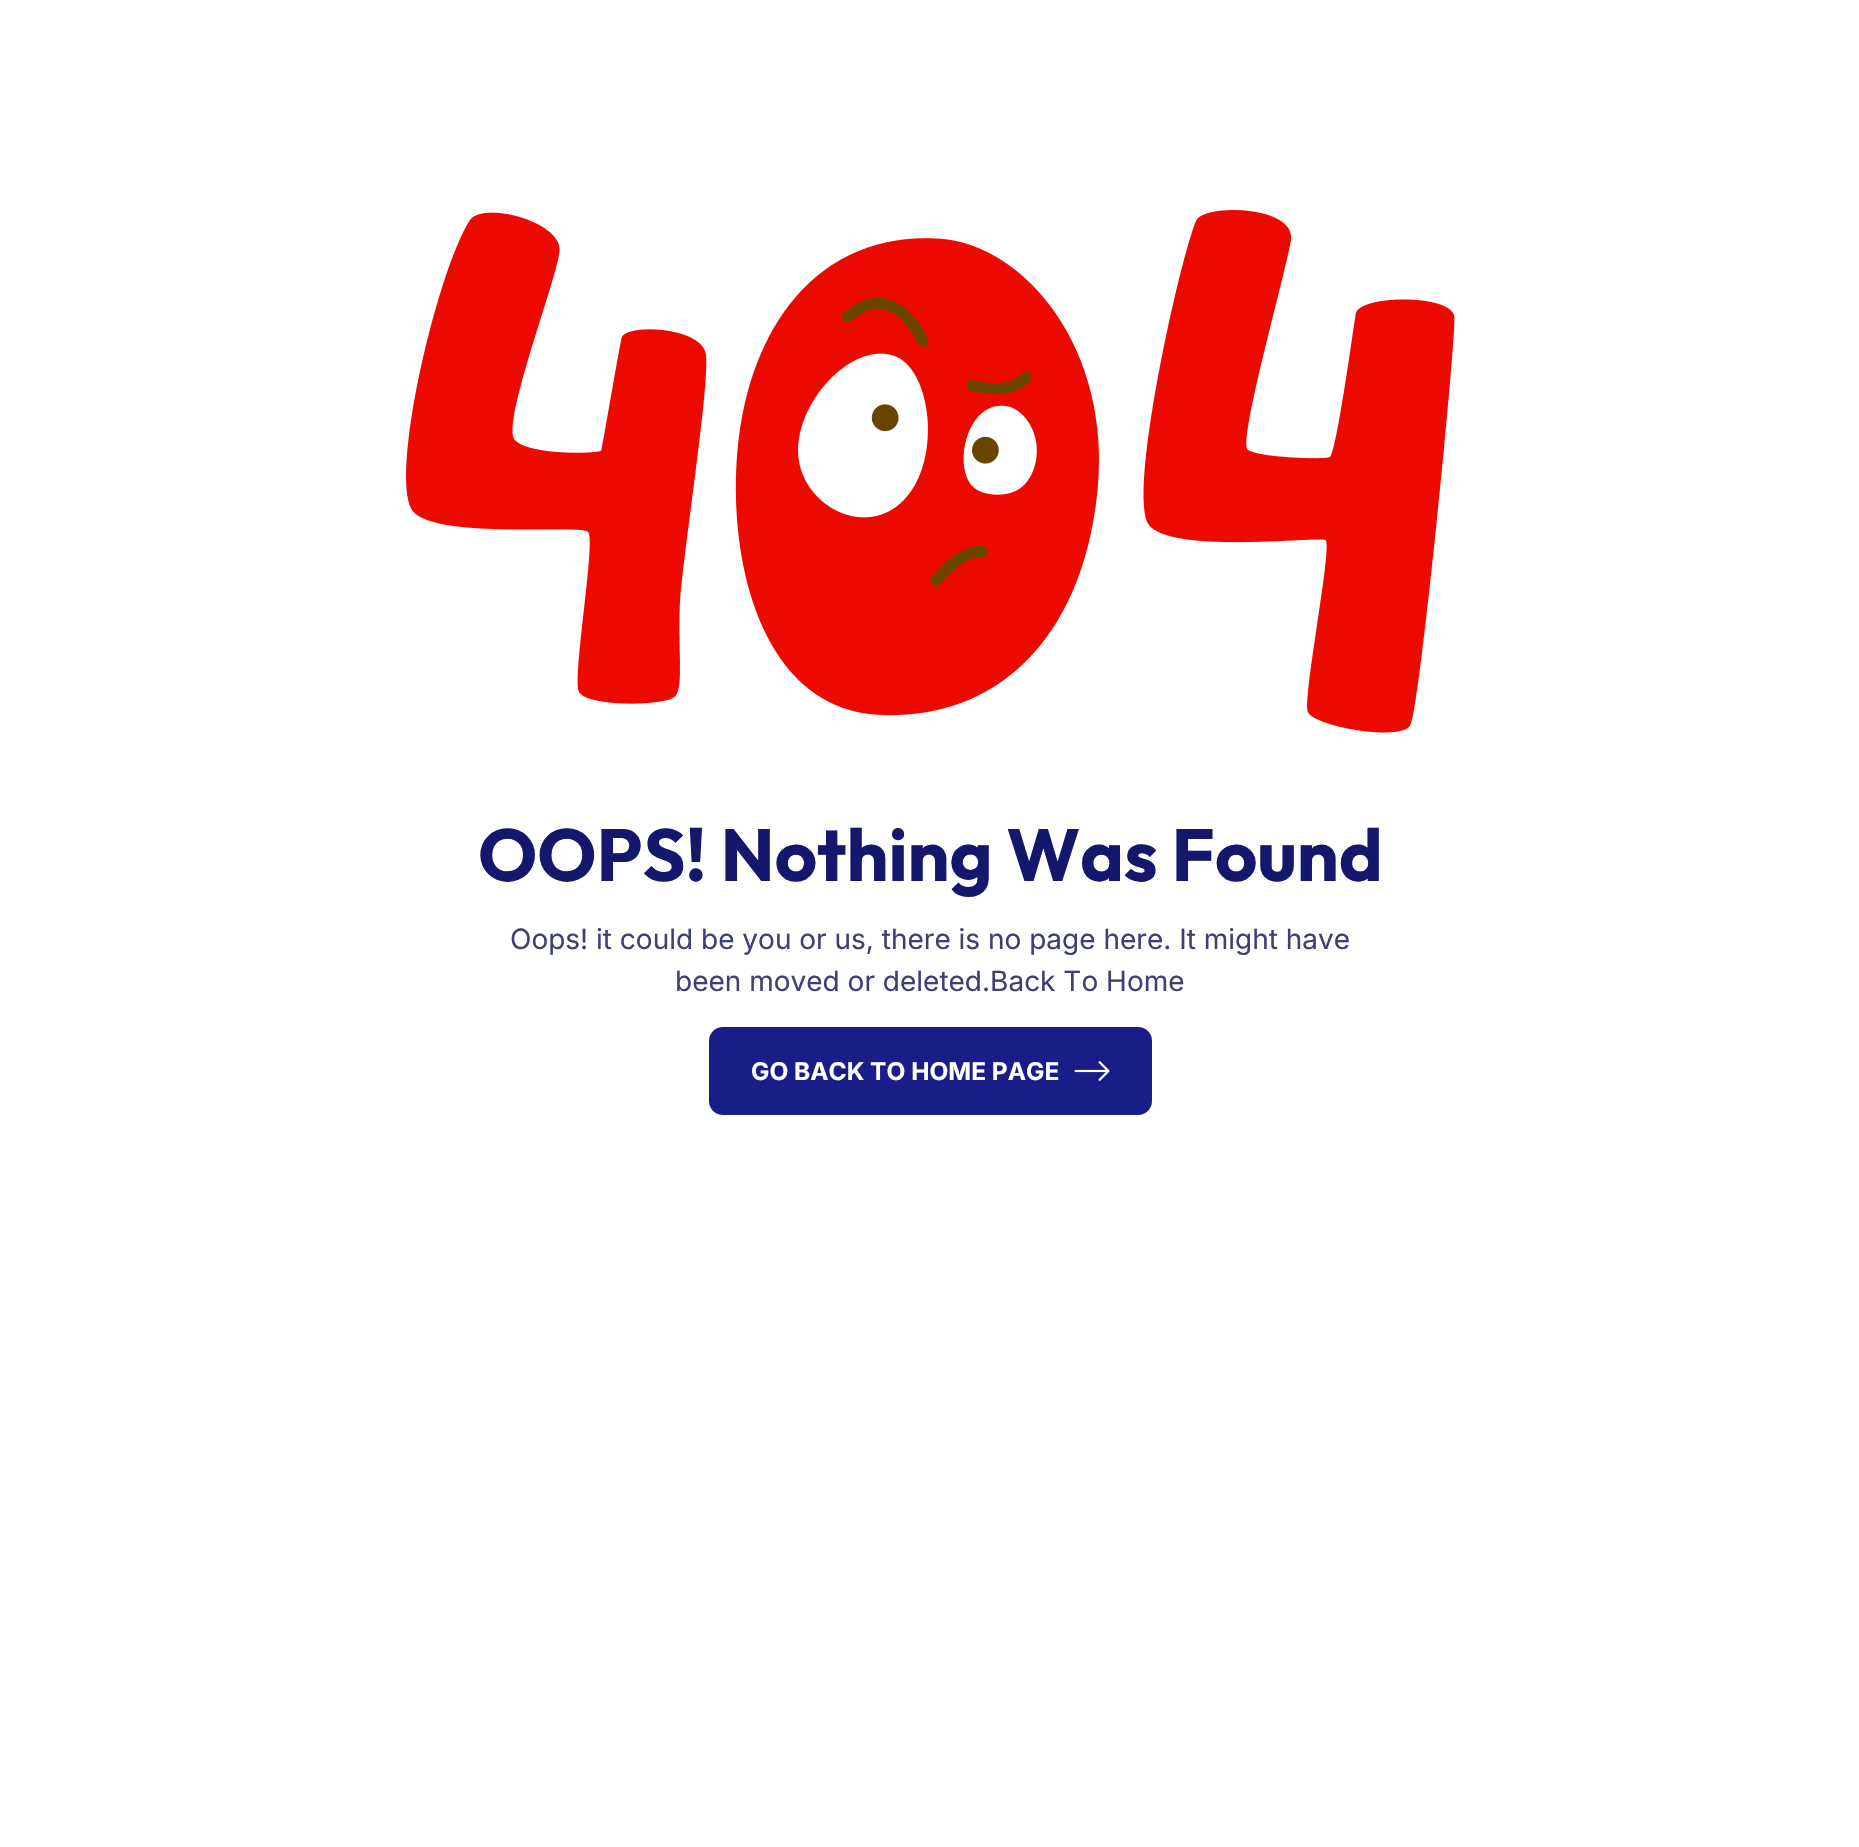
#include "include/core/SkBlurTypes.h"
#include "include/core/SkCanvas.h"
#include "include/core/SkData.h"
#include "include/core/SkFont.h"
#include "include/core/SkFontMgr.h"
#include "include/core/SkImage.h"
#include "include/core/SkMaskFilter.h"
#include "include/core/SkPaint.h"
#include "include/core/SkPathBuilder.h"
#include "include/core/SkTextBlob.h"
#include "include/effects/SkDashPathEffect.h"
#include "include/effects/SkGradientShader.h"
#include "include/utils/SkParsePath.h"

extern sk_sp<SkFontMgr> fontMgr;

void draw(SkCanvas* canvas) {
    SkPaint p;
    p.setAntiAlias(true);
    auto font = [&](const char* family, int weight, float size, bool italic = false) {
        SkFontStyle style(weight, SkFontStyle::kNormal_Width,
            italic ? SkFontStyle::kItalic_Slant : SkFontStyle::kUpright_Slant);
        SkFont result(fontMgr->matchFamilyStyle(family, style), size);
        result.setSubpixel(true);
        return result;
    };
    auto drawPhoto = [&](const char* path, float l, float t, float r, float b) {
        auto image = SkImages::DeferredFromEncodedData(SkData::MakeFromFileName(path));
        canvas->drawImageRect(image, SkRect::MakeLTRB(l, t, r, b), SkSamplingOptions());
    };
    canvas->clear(0xFFFFFFFF);
    drawPhoto("media/1.png", 406, 210, 1455, 733);
    auto font1 = font("Outfit", 700, 73.5f);
    p.setColor(0xFF14176C);
    canvas->drawString("OOPS! Nothing Was Found", 478, 881, font1, p);
    auto font2 = font("Inter", 400, 28);
    p.setColor(0xFF3E4073);
    canvas->drawString("Oops! it could be you or us, there is no page here. It might have", 510, 949, font2, p);
    canvas->drawString("been moved or deleted.Back To Home", 675, 991, font2, p);
    p.setColor(0xFF191D88);
    canvas->drawRoundRect(SkRect::MakeLTRB(709, 1027, 1152, 1115), 14, 14, p);
    auto font3 = font("Inter", 700, 24.5f);
    p.setColor(0xFFFFFFFF);
    canvas->drawString("GO BACK TO HOME PAGE", 751, 1080, font3, p);
    drawPhoto("media/2.png", 1074, 1061, 1110, 1081);
}
